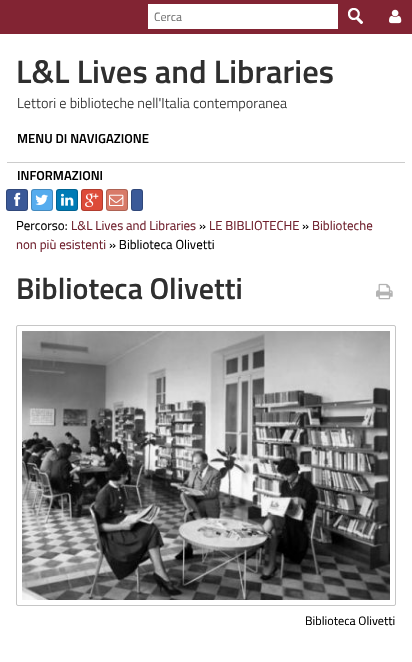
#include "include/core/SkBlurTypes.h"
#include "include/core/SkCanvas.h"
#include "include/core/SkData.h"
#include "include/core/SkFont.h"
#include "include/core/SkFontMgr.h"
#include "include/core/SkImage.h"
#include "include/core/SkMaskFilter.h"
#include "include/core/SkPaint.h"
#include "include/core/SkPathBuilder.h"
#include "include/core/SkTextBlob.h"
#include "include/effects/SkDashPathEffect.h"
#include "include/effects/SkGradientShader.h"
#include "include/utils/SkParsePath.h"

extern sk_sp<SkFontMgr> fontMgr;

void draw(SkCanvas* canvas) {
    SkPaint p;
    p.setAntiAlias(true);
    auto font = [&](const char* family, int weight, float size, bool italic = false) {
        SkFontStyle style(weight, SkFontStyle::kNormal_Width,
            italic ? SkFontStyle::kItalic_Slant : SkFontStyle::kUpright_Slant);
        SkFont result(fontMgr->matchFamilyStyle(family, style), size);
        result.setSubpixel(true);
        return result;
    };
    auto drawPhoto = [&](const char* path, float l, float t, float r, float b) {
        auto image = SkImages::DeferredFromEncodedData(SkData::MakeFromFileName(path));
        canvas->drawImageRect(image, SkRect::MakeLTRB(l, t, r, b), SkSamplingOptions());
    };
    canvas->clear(0xFFFFFFFF);
    p.setColor(0xFF822433);
    canvas->drawRect(SkRect::MakeLTRB(0, 0, 412, 34), p);
    p.setColor(0xFFFFFFFF);
    canvas->drawRect(SkRect::MakeLTRB(148, 4, 338, 29), p);
    auto font1 = font("Titillium Web", 400, 12);
    p.setColor(0xFF757575);
    canvas->drawString("Cerca", 154, 21, font1, p);
    drawPhoto("media/1.png", 348, 8, 363, 24);
    drawPhoto("media/2.png", 389, 9, 402, 24);
    auto font2 = font("Titillium Web", 600, 32.5f);
    p.setColor(0xFF2F2F2F);
    canvas->drawString("L&L Lives and Libraries", 16, 83, font2, p);
    auto font3 = font("Titillium Web", 300, 14.25f);
    canvas->drawString("Lettori e biblioteche nell'Italia contemporanea", 17, 108, font3, p);
    auto font4 = font("Titillium Web", 600, 13);
    p.setColor(0xFF000000);
    canvas->drawString("MENU DI NAVIGAZIONE", 17, 143, font4, p);
    {
        const struct { float l, t, r, b; SkColor color; } items[] = {
            {6, 162, 406, 163, 0xFFCCCCCC},
            {405, 162, 406, 163, 0xFFFFFFFF},
            {6, 162, 7, 163, 0xFFFFFFFF},
        };
        for (auto [l, t, r, b, color] : items) {
            p.setColor(color);
            canvas->drawRect(SkRect::MakeLTRB(l, t, r, b), p);
        }
    }
    p.setColor(0xFF000000);
    canvas->drawString("INFORMAZIONI", 17, 180, font4, p);
    p.setColor(0xFF3B5998);
    canvas->drawRoundRect(SkRect::MakeLTRB(6, 189, 28, 211), 3, 3, p);
    p.setStyle(SkPaint::kStroke_Style);
    p.setStrokeWidth(1);
    p.setColor(0x33000000);
    canvas->drawRoundRect(SkRect::MakeLTRB(6.5f, 189.5f, 27.5f, 210.5f), 2.5f, 2.5f, p);
    drawPhoto("media/3.png", 14, 192, 21, 206);
    p.setStyle(SkPaint::kFill_Style);
    p.setColor(0xFF55ACEE);
    canvas->drawRoundRect(SkRect::MakeLTRB(31, 189, 53, 211), 3, 3, p);
    p.setStyle(SkPaint::kStroke_Style);
    p.setColor(0x33000000);
    canvas->drawRoundRect(SkRect::MakeLTRB(31.5f, 189.5f, 52.5f, 210.5f), 2.5f, 2.5f, p);
    drawPhoto("media/4.png", 35, 194, 48, 205);
    p.setStyle(SkPaint::kFill_Style);
    p.setColor(0xFF007BB6);
    canvas->drawRoundRect(SkRect::MakeLTRB(56, 189, 78, 211), 3, 3, p);
    p.setStyle(SkPaint::kStroke_Style);
    p.setColor(0x33000000);
    canvas->drawRoundRect(SkRect::MakeLTRB(56.5f, 189.5f, 77.5f, 210.5f), 2.5f, 2.5f, p);
    drawPhoto("media/5.png", 61, 193, 74, 206);
    p.setStyle(SkPaint::kFill_Style);
    p.setColor(0xFFDD4B39);
    canvas->drawRoundRect(SkRect::MakeLTRB(81, 189, 103, 211), 3, 3, p);
    p.setStyle(SkPaint::kStroke_Style);
    p.setColor(0x33000000);
    canvas->drawRoundRect(SkRect::MakeLTRB(81.5f, 189.5f, 102.5f, 210.5f), 2.5f, 2.5f, p);
    drawPhoto("media/6.png", 85, 193, 99, 208);
    p.setStyle(SkPaint::kFill_Style);
    p.setColor(0xFFD87A68);
    canvas->drawRoundRect(SkRect::MakeLTRB(106, 189, 128, 211), 3, 3, p);
    p.setStyle(SkPaint::kStroke_Style);
    p.setColor(0x33000000);
    canvas->drawRoundRect(SkRect::MakeLTRB(106.5f, 189.5f, 127.5f, 210.5f), 2.5f, 2.5f, p);
    drawPhoto("media/7.png", 109, 194, 124, 206);
    p.setStyle(SkPaint::kFill_Style);
    p.setColor(0xFF3B5998);
    canvas->drawRoundRect(SkRect::MakeLTRB(131, 189, 143, 211), 3, 3, p);
    p.setStyle(SkPaint::kStroke_Style);
    p.setColor(0x33000000);
    canvas->drawRoundRect(SkRect::MakeLTRB(131.5f, 189.5f, 142.5f, 210.5f), 2.5f, 2.5f, p);
    auto font5 = font("Titillium Web", 400, 13);
    p.setStyle(SkPaint::kFill_Style);
    p.setColor(0xFF000000);
    canvas->drawString("Percorso:", 16, 230, font5, p);
    p.setColor(0xFF6E1E2B);
    canvas->drawString("L&L Lives and Libraries", 71, 230, font5, p);
    p.setColor(0xFF000000);
    canvas->drawString("»", 199, 230, font5, p);
    p.setColor(0xFF6E1E2B);
    canvas->drawString("LE BIBLIOTECHE", 209, 230, font5, p);
    p.setColor(0xFF000000);
    canvas->drawString("»", 302, 230, font5, p);
    p.setColor(0xFF6E1E2B);
    canvas->drawString("Biblioteche", 312, 230, font5, p);
    canvas->drawString("non più esistenti", 16, 249, font5, p);
    p.setColor(0xFF000000);
    canvas->drawString("» Biblioteca Olivetti", 109, 249, font5, p);
    auto font6 = font("Titillium Web", 600, 30);
    p.setColor(0xFF2F2F2F);
    canvas->drawString("Biblioteca Olivetti", 16, 299, font6, p);
    drawPhoto("media/8.png", 376, 283, 393, 300);
    p.setStyle(SkPaint::kStroke_Style);
    p.setColor(0xFFC6C6C6);
    canvas->drawRoundRect(SkRect::MakeLTRB(16.5f, 325.5f, 395.5f, 605.5f), 1.5f, 1.5f, p);
    drawPhoto("media/9.png", 22, 331, 390, 600);
    auto font7 = font("Titillium Web", 400, 12.25f);
    p.setStyle(SkPaint::kFill_Style);
    p.setColor(0xFF000000);
    canvas->drawString("Biblioteca Olivetti", 305, 625, font7, p);
}
